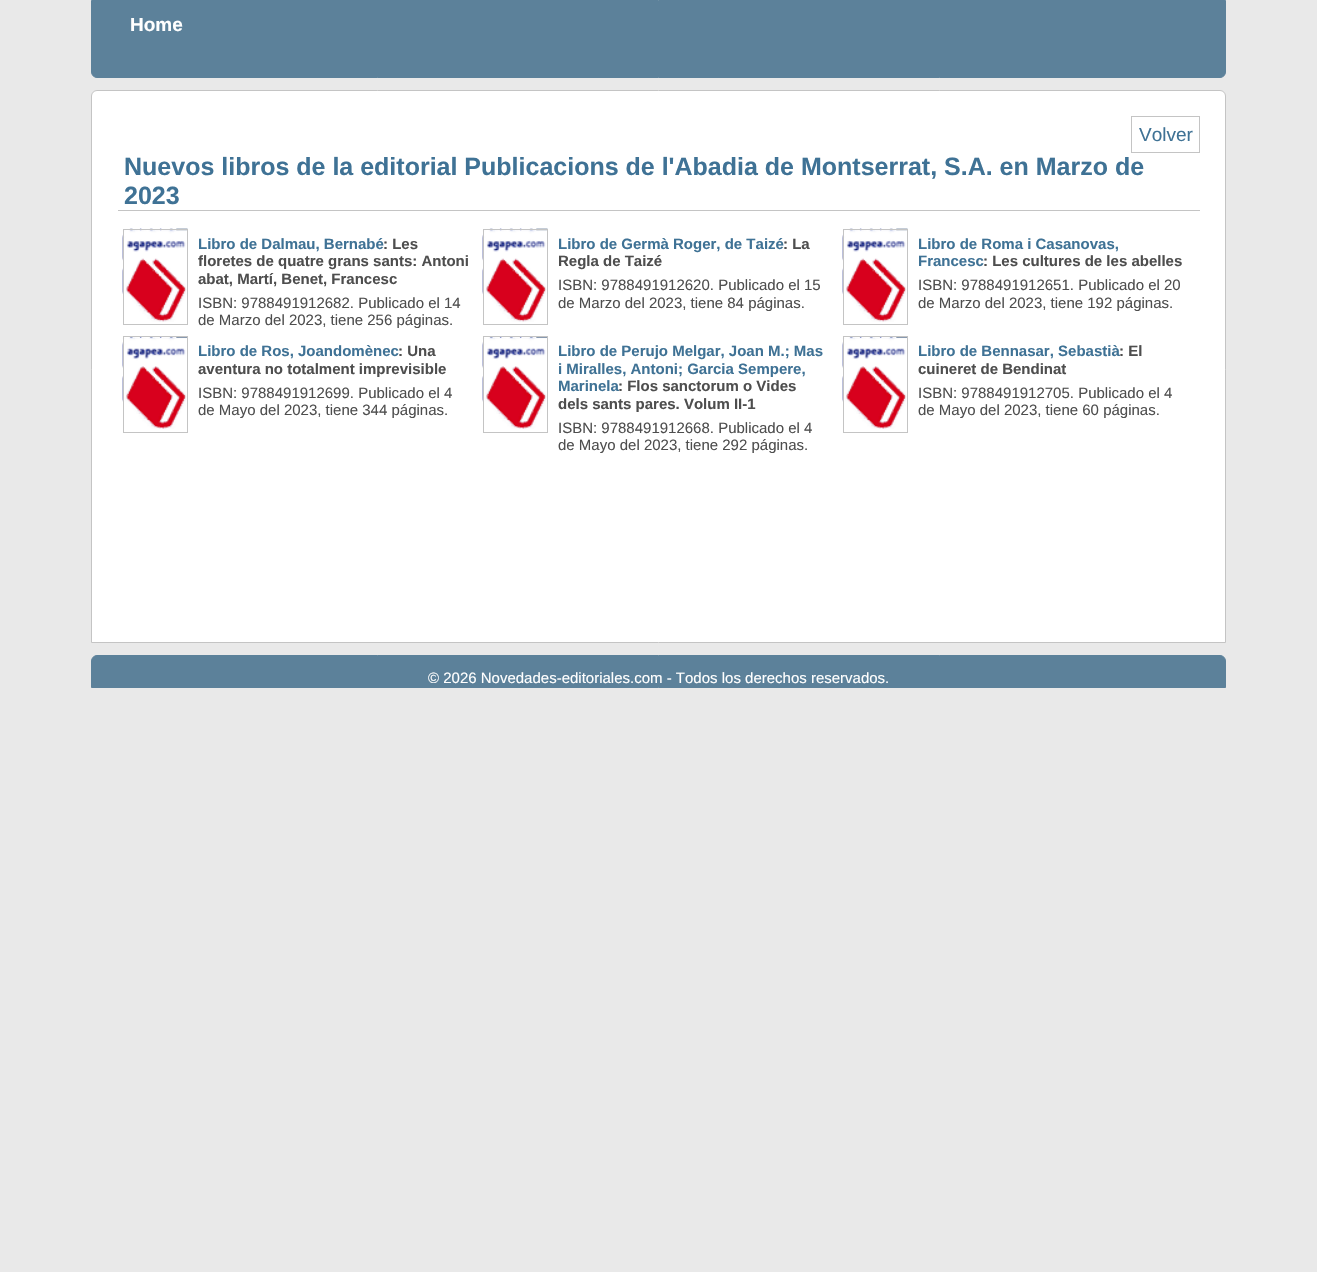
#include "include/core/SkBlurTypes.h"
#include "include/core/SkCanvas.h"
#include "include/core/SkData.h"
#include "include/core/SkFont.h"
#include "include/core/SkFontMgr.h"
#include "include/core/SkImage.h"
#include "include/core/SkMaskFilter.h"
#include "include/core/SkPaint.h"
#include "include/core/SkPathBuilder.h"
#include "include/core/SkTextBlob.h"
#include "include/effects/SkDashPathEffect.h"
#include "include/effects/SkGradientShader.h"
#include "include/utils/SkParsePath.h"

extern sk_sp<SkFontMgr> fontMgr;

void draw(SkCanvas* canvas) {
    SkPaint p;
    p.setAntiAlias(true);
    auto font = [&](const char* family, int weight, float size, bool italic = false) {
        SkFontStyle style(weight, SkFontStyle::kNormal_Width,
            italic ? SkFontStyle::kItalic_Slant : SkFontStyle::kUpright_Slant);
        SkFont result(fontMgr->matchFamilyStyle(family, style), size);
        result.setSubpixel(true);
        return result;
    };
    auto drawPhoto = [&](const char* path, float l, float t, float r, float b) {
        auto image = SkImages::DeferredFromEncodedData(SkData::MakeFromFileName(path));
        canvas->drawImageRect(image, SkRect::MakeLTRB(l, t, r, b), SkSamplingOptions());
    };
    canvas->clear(0xFFE9E9E9);
    p.setColor(0xFF5C819A);
    canvas->drawPath(SkPathBuilder().moveTo(91.5f, 0.5f).lineTo(1225.5f, 0.5f).lineTo(1225.5f, 72).cubicTo(1225.5f, 75, 1223, 77.5f, 1220, 77.5f).lineTo(97, 77.5f).cubicTo(94, 77.5f, 91.5f, 75, 91.5f, 72).close().detach(), p);
    p.setStyle(SkPaint::kStroke_Style);
    p.setStrokeWidth(1);
    canvas->drawPath(SkPathBuilder().moveTo(91.5f, 0.5f).lineTo(1225.5f, 0.5f).lineTo(1225.5f, 72).cubicTo(1225.5f, 75, 1223, 77.5f, 1220, 77.5f).lineTo(97, 77.5f).cubicTo(94, 77.5f, 91.5f, 75, 91.5f, 72).close().detach(), p);
    auto font1 = font("Liberation Sans", 700, 19);
    p.setStyle(SkPaint::kFill_Style);
    p.setColor(0xFFFFFFFF);
    canvas->drawString("Home", 130, 31, font1, p);
    canvas->drawPath(SkPathBuilder().moveTo(97, 90.5f).lineTo(1220, 90.5f).cubicTo(1223, 90.5f, 1225.5f, 93, 1225.5f, 96).lineTo(1225.5f, 642.5f).lineTo(91.5f, 642.5f).lineTo(91.5f, 96).cubicTo(91.5f, 93, 94, 90.5f, 97, 90.5f).close().detach(), p);
    p.setStyle(SkPaint::kStroke_Style);
    p.setColor(0xFFC4C4C4);
    canvas->drawPath(SkPathBuilder().moveTo(97, 90.5f).lineTo(1220, 90.5f).cubicTo(1223, 90.5f, 1225.5f, 93, 1225.5f, 96).lineTo(1225.5f, 642.5f).lineTo(91.5f, 642.5f).lineTo(91.5f, 96).cubicTo(91.5f, 93, 94, 90.5f, 97, 90.5f).close().detach(), p);
    canvas->drawRect(SkRect::MakeLTRB(1131.5f, 116.5f, 1199.5f, 152.5f), p);
    auto font2 = font("Liberation Sans", 400, 19);
    p.setStyle(SkPaint::kFill_Style);
    p.setColor(0xFF3F7295);
    canvas->drawString("Volver", 1139, 141, font2, p);
    auto font3 = font("Liberation Sans", 700, 25);
    canvas->drawString("Nuevos libros de la editorial Publicacions de l'Abadia de Montserrat, S.A. en Marzo de", 124, 175, font3, p);
    canvas->drawString("2023", 124, 204, font3, p);
    p.setColor(0xFFC4C4C4);
    canvas->drawRect(SkRect::MakeLTRB(118, 210, 1200, 211), p);
    drawPhoto("media/1.png", 122, 228, 188, 322);
    p.setStyle(SkPaint::kStroke_Style);
    canvas->drawRect(SkRect::MakeLTRB(123.5f, 229.5f, 187.5f, 324.5f), p);
    auto font4 = font("Liberation Sans", 700, 15);
    p.setStyle(SkPaint::kFill_Style);
    p.setColor(0xFF3F7295);
    canvas->drawString("Libro de Dalmau, Bernabé", 198, 249, font4, p);
    p.setColor(0xFF4E4E4E);
    {
        const struct { const char* s; float x, y; } items[] = {
            {": Les", 383, 249},
            {"floretes de quatre grans sants: Antoni", 198, 266},
            {"abat, Martí, Benet, Francesc", 198, 284},
        };
        for (auto [s, x, y] : items) {
            canvas->drawString(s, x, y, font4, p);
        }
    }
    auto font5 = font("Liberation Sans", 400, 15);
    canvas->drawString("ISBN: 9788491912682. Publicado el 14", 198, 308, font5, p);
    canvas->drawString("de Marzo del 2023, tiene 256 páginas.", 198, 325, font5, p);
    drawPhoto("media/2.png", 482, 228, 548, 322);
    p.setStyle(SkPaint::kStroke_Style);
    p.setColor(0xFFC4C4C4);
    canvas->drawRect(SkRect::MakeLTRB(483.5f, 229.5f, 547.5f, 324.5f), p);
    p.setStyle(SkPaint::kFill_Style);
    p.setColor(0xFF3F7295);
    canvas->drawString("Libro de Germà Roger, de Taizé", 558, 249, font4, p);
    p.setColor(0xFF4E4E4E);
    canvas->drawString(": La", 783, 249, font4, p);
    canvas->drawString("Regla de Taizé", 558, 266, font4, p);
    canvas->drawString("ISBN: 9788491912620. Publicado el 15", 558, 290, font5, p);
    canvas->drawString("de Marzo del 2023, tiene 84 páginas.", 558, 308, font5, p);
    drawPhoto("media/1.png", 842, 228, 908, 322);
    p.setStyle(SkPaint::kStroke_Style);
    p.setColor(0xFFC4C4C4);
    canvas->drawRect(SkRect::MakeLTRB(843.5f, 229.5f, 907.5f, 324.5f), p);
    p.setStyle(SkPaint::kFill_Style);
    p.setColor(0xFF3F7295);
    canvas->drawString("Libro de Roma i Casanovas,", 918, 249, font4, p);
    canvas->drawString("Francesc", 918, 266, font4, p);
    p.setColor(0xFF4E4E4E);
    canvas->drawString(": Les cultures de les abelles", 983, 266, font4, p);
    canvas->drawString("ISBN: 9788491912651. Publicado el 20", 918, 290, font5, p);
    canvas->drawString("de Marzo del 2023, tiene 192 páginas.", 918, 308, font5, p);
    drawPhoto("media/3.png", 122, 337, 187, 429);
    p.setStyle(SkPaint::kStroke_Style);
    p.setColor(0xFFC4C4C4);
    canvas->drawRect(SkRect::MakeLTRB(123.5f, 336.5f, 187.5f, 432.5f), p);
    p.setStyle(SkPaint::kFill_Style);
    p.setColor(0xFF3F7295);
    canvas->drawString("Libro de Ros, Joandomènec", 198, 356, font4, p);
    p.setColor(0xFF4E4E4E);
    canvas->drawString(": Una", 398, 356, font4, p);
    canvas->drawString("aventura no totalment imprevisible", 198, 374, font4, p);
    canvas->drawString("ISBN: 9788491912699. Publicado el 4", 198, 398, font5, p);
    canvas->drawString("de Mayo del 2023, tiene 344 páginas.", 198, 415, font5, p);
    drawPhoto("media/4.png", 482, 337, 547, 429);
    p.setStyle(SkPaint::kStroke_Style);
    p.setColor(0xFFC4C4C4);
    canvas->drawRect(SkRect::MakeLTRB(483.5f, 336.5f, 547.5f, 432.5f), p);
    p.setStyle(SkPaint::kFill_Style);
    p.setColor(0xFF3F7295);
    {
        const struct { const char* s; float x, y; } items[] = {
            {"Libro de Perujo Melgar, Joan M.; Mas", 558, 356},
            {"i Miralles, Antoni; Garcia Sempere,", 558, 374},
            {"Marinela", 558, 391},
        };
        for (auto [s, x, y] : items) {
            canvas->drawString(s, x, y, font4, p);
        }
    }
    p.setColor(0xFF4E4E4E);
    canvas->drawString(": Flos sanctorum o Vides", 618, 391, font4, p);
    canvas->drawString("dels sants pares. Volum II-1", 558, 409, font4, p);
    canvas->drawString("ISBN: 9788491912668. Publicado el 4", 558, 433, font5, p);
    canvas->drawString("de Mayo del 2023, tiene 292 páginas.", 558, 450, font5, p);
    drawPhoto("media/3.png", 842, 337, 907, 429);
    p.setStyle(SkPaint::kStroke_Style);
    p.setColor(0xFFC4C4C4);
    canvas->drawRect(SkRect::MakeLTRB(843.5f, 336.5f, 907.5f, 432.5f), p);
    p.setStyle(SkPaint::kFill_Style);
    p.setColor(0xFF3F7295);
    canvas->drawString("Libro de Bennasar, Sebastià", 918, 356, font4, p);
    p.setColor(0xFF4E4E4E);
    canvas->drawString(": El", 1119, 356, font4, p);
    canvas->drawString("cuineret de Bendinat", 918, 374, font4, p);
    canvas->drawString("ISBN: 9788491912705. Publicado el 4", 918, 398, font5, p);
    canvas->drawString("de Mayo del 2023, tiene 60 páginas.", 918, 415, font5, p);
    p.setColor(0xFF5C819A);
    canvas->drawPath(SkPathBuilder().moveTo(97, 655.5f).lineTo(1220, 655.5f).cubicTo(1223, 655.5f, 1225.5f, 658, 1225.5f, 661).lineTo(1225.5f, 687.5f).lineTo(91.5f, 687.5f).lineTo(91.5f, 661).cubicTo(91.5f, 658, 94, 655.5f, 97, 655.5f).close().detach(), p);
    p.setStyle(SkPaint::kStroke_Style);
    canvas->drawPath(SkPathBuilder().moveTo(97, 655.5f).lineTo(1220, 655.5f).cubicTo(1223, 655.5f, 1225.5f, 658, 1225.5f, 661).lineTo(1225.5f, 687.5f).lineTo(91.5f, 687.5f).lineTo(91.5f, 661).cubicTo(91.5f, 658, 94, 655.5f, 97, 655.5f).close().detach(), p);
    p.setStyle(SkPaint::kFill_Style);
    p.setColor(0xFFFFFFFF);
    canvas->drawString("© 2026 Novedades-editoriales.com - Todos los derechos reservados.", 428, 683, font5, p);
}
